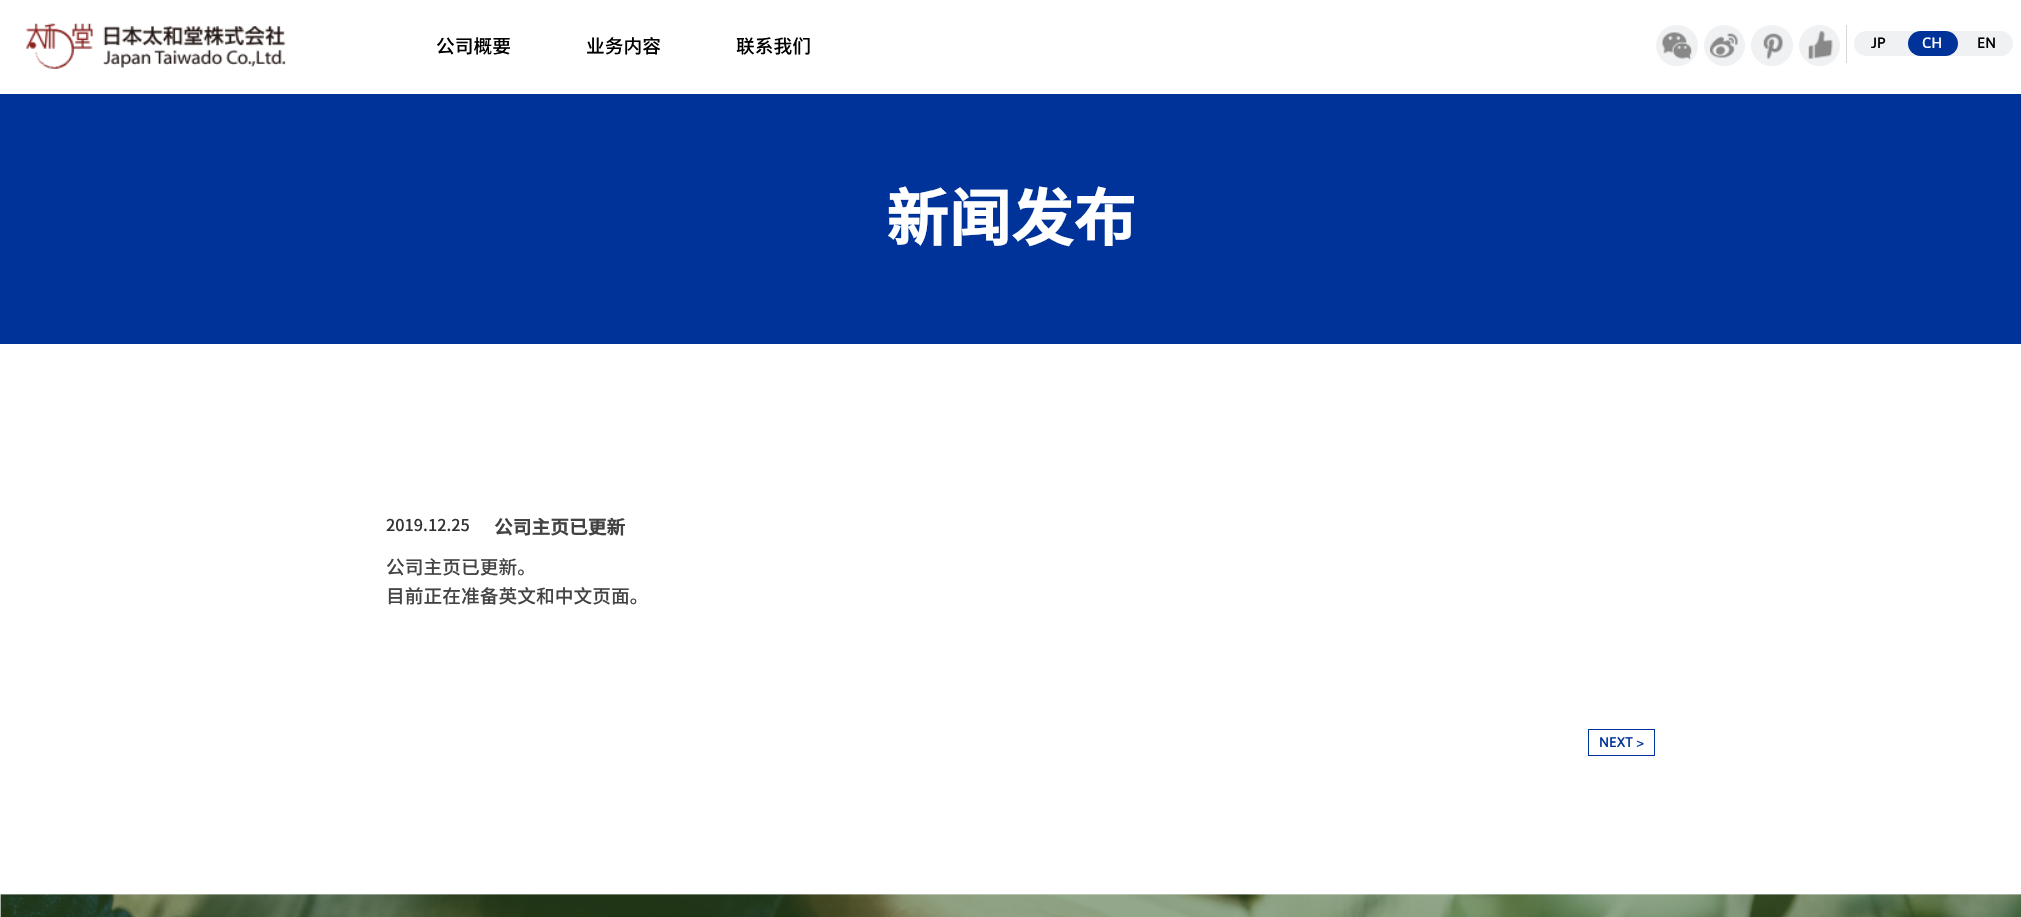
#include "include/core/SkBlurTypes.h"
#include "include/core/SkCanvas.h"
#include "include/core/SkData.h"
#include "include/core/SkFont.h"
#include "include/core/SkFontMgr.h"
#include "include/core/SkImage.h"
#include "include/core/SkMaskFilter.h"
#include "include/core/SkPaint.h"
#include "include/core/SkPathBuilder.h"
#include "include/core/SkTextBlob.h"
#include "include/effects/SkDashPathEffect.h"
#include "include/effects/SkGradientShader.h"
#include "include/utils/SkParsePath.h"

extern sk_sp<SkFontMgr> fontMgr;

void draw(SkCanvas* canvas) {
    SkPaint p;
    p.setAntiAlias(true);
    auto font = [&](const char* family, int weight, float size, bool italic = false) {
        SkFontStyle style(weight, SkFontStyle::kNormal_Width,
            italic ? SkFontStyle::kItalic_Slant : SkFontStyle::kUpright_Slant);
        SkFont result(fontMgr->matchFamilyStyle(family, style), size);
        result.setSubpixel(true);
        return result;
    };
    auto drawPhoto = [&](const char* path, float l, float t, float r, float b) {
        auto image = SkImages::DeferredFromEncodedData(SkData::MakeFromFileName(path));
        canvas->drawImageRect(image, SkRect::MakeLTRB(l, t, r, b), SkSamplingOptions());
    };
    canvas->clear(0xFFFFFFFF);
    drawPhoto("media/1.png", 26, 23, 286, 69);
    auto font1 = font("Noto Sans SC", 500, 18.75f);
    p.setColor(0xFF000000);
    {
        const struct { const char* s; float x, y; } items[] = {
            {"公司概要", 436, 53},
            {"业务内容", 586, 53},
            {"联系我们", 736, 53},
        };
        for (auto [s, x, y] : items) {
            canvas->drawString(s, x, y, font1, p);
        }
    }
    p.setColor(0xFFF0F1F3);
    canvas->drawRoundRect(SkRect::MakeLTRB(1656, 25, 1698, 66), 20.5f, 20.5f, p);
    drawPhoto("media/2.png", 1662, 32, 1692, 59);
    canvas->drawCircle(1724.5f, 45.5f, 20.5f, p);
    drawPhoto("media/3.png", 1710, 33, 1738, 58);
    canvas->drawRoundRect(SkRect::MakeLTRB(1751, 25, 1793, 66), 20.5f, 20.5f, p);
    drawPhoto("media/4.png", 1763, 33, 1783, 59);
    canvas->drawCircle(1819.5f, 45.5f, 20.5f, p);
    drawPhoto("media/5.png", 1808, 31, 1833, 59);
    p.setColor(0xFFD7D7D7);
    canvas->drawRect(SkRect::MakeLTRB(1846, 25, 1847, 63), p);
    p.setColor(0xFFF0F1F3);
    canvas->drawRoundRect(SkRect::MakeLTRB(1854, 31, 2013, 56), 12.5f, 12.5f, p);
    auto font2 = font("Asap", 500, 15);
    p.setColor(0xFF000000);
    canvas->drawString("JP", 1871, 48, font2, p);
    p.setColor(0xFF003399);
    canvas->drawRoundRect(SkRect::MakeLTRB(1908, 31, 1958, 56), 12.5f, 12.5f, p);
    p.setColor(0xFFFFFFFF);
    canvas->drawString("CH", 1922, 48, font2, p);
    p.setColor(0xFF000000);
    canvas->drawString("EN", 1977, 48, font2, p);
    p.setColor(0xFF003399);
    canvas->drawRect(SkRect::MakeLTRB(0, 94, 2021, 344), p);
    auto font3 = font("Noto Sans SC", 700, 62.5f);
    p.setColor(0xFFFFFFFF);
    canvas->drawString("新闻发布", 886, 241, font3, p);
    auto font4 = font("Noto Sans SC", 500, 16.25f);
    p.setColor(0xFF333333);
    canvas->drawString("2019.12.25", 386, 531, font4, p);
    auto font5 = font("Noto Sans SC", 700, 18.75f);
    p.setColor(0xFF434343);
    canvas->drawString("公司主页已更新", 494, 534, font5, p);
    canvas->drawString("公司主页已更新。", 386, 574, font1, p);
    canvas->drawString("目前正在准备英文和中文页面。", 386, 603, font1, p);
    p.setStyle(SkPaint::kStroke_Style);
    p.setStrokeWidth(1);
    p.setColor(0xFF003399);
    canvas->drawRect(SkRect::MakeLTRB(1588.5f, 729.5f, 1654.5f, 755.5f), p);
    auto font6 = font("Asap", 500, 14);
    p.setStyle(SkPaint::kFill_Style);
    canvas->drawString("NEXT >", 1599, 747, font6, p);
    drawPhoto("media/6.png", 0, 894, 2021, 917);
}
